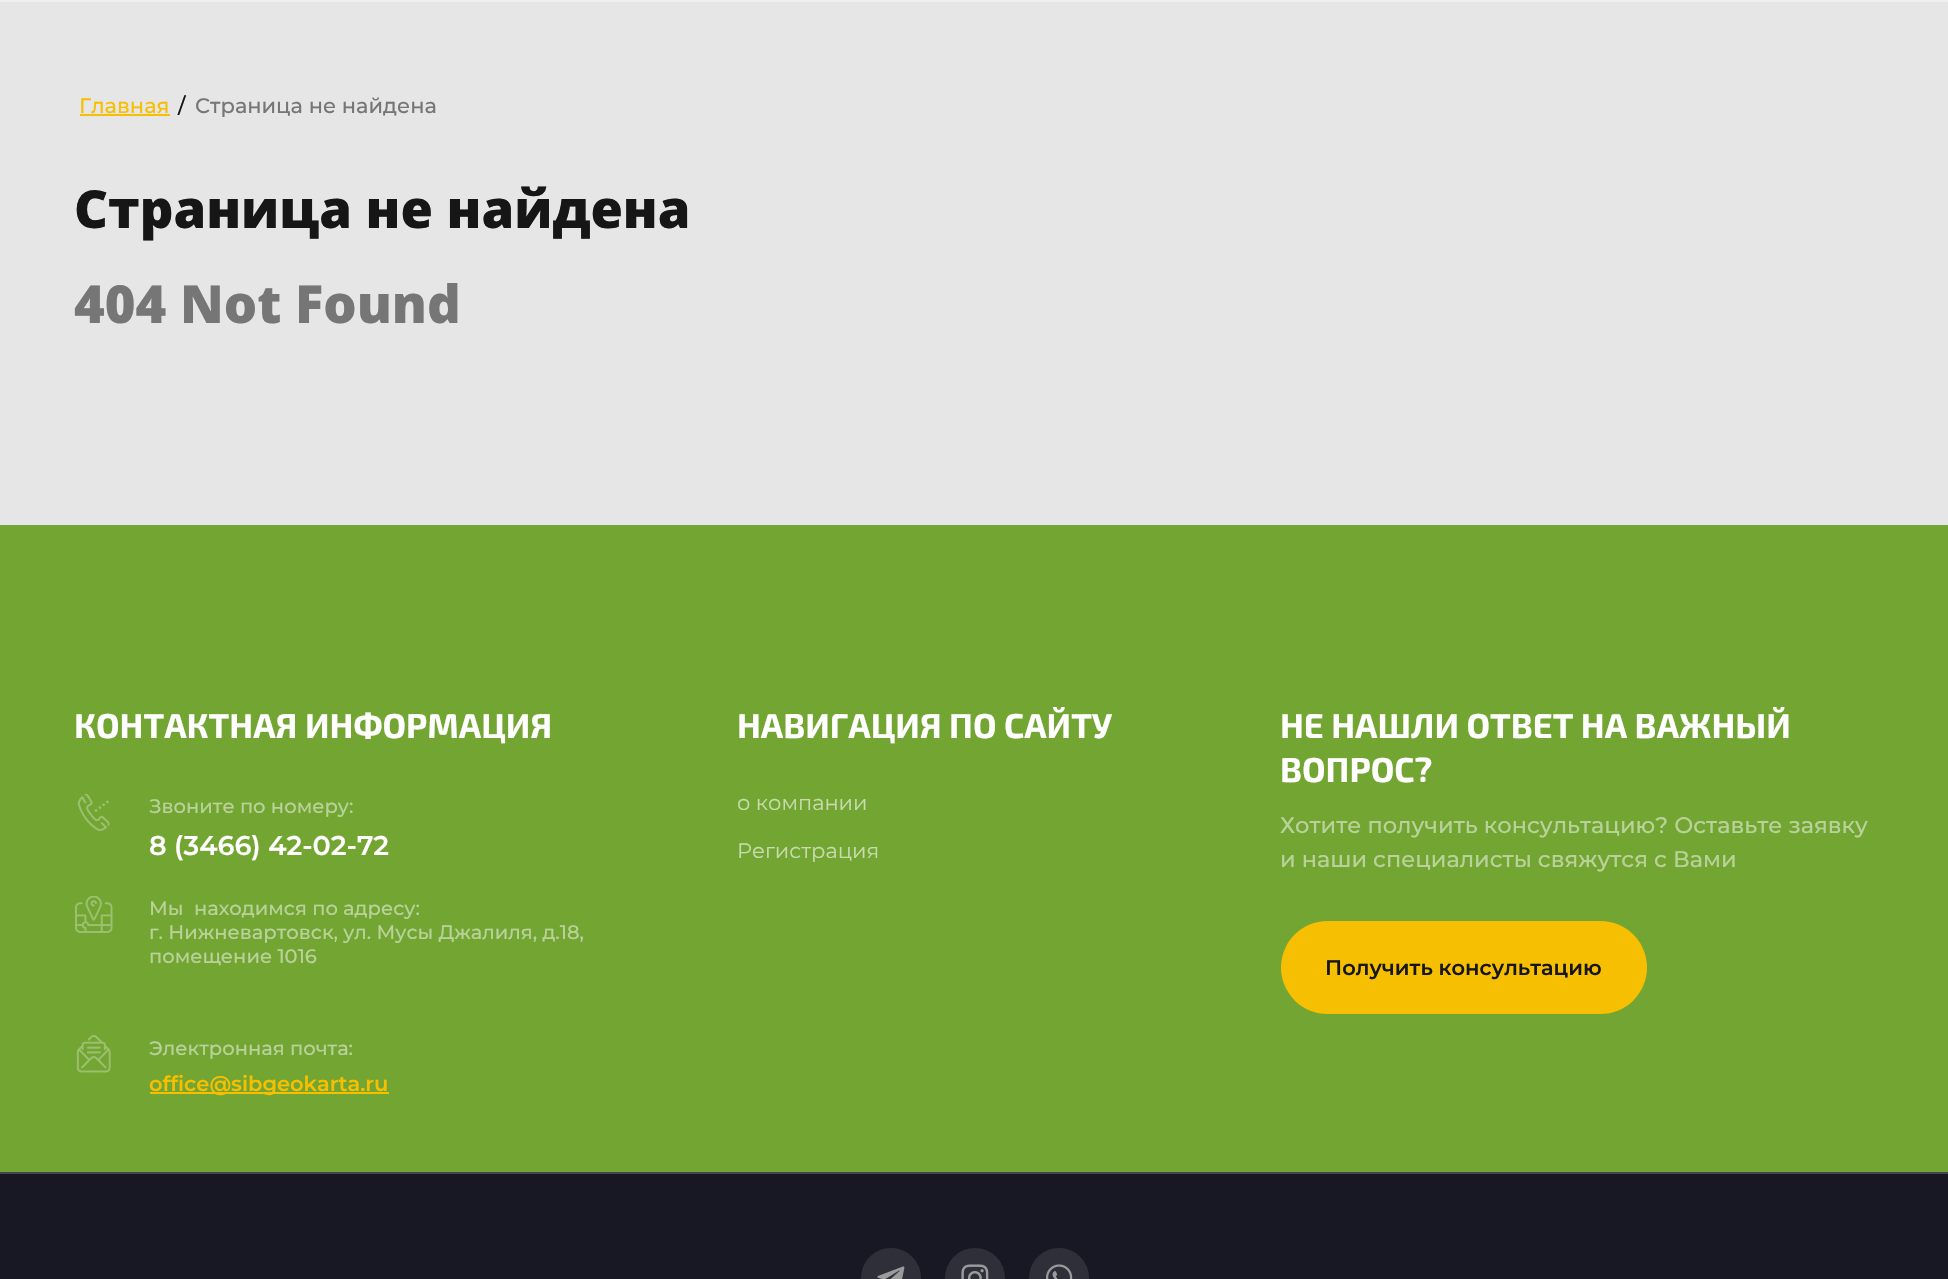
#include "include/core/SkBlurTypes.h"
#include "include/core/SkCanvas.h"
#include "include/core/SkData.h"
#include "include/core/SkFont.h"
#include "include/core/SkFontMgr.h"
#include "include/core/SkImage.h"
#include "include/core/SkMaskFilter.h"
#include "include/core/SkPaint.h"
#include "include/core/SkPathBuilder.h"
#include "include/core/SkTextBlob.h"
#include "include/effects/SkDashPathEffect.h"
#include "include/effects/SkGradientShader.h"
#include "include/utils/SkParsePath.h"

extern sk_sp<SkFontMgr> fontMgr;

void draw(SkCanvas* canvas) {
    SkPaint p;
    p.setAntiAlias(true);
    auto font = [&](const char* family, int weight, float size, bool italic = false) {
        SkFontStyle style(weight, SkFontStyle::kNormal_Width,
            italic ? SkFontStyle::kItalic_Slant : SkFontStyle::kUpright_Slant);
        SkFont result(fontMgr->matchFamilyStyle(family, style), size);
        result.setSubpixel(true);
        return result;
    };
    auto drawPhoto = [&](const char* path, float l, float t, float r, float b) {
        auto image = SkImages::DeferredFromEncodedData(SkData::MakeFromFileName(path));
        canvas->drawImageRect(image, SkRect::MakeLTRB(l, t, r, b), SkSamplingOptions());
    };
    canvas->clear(0xFFE6E6E6);
    p.setColor(0xFFF0F0F0);
    canvas->drawRect(SkRect::MakeLTRB(0, 0, 1948, 2), p);
    auto font1 = font("Montserrat", 500, 21);
    p.setColor(0xFFF7BF01);
    canvas->drawString("Главная", 79, 113, font1, p);
    canvas->drawRect(SkRect::MakeLTRB(80, 114, 170, 116), p);
    p.setColor(0xFF161616);
    canvas->drawString("/", 178, 113, font1, p);
    p.setColor(0xFF767676);
    canvas->drawString("Страница не найдена", 195, 113, font1, p);
    auto font2 = font("Open Sans", 800, 52.5f);
    p.setColor(0xFF161616);
    canvas->drawString("Страница не найдена", 74, 228, font2, p);
    p.setColor(0xFF767676);
    canvas->drawString("404 Not Found", 74, 323, font2, p);
    p.setColor(0xFF171823);
    canvas->drawRect(SkRect::MakeLTRB(0, 1174, 1948, 1279), p);
    p.setColor(0xFF73A532);
    canvas->drawRect(SkRect::MakeLTRB(0, 525, 1948, 1172), p);
    auto font3 = font("Exo 2", 700, 34.5f);
    p.setColor(0xFFFFFFFF);
    canvas->drawString("КОНТАКТНАЯ ИНФОРМАЦИЯ", 74, 738, font3, p);
    drawPhoto("media/1.png", 77, 794, 110, 831);
    auto font4 = font("Montserrat", 500, 19.5f);
    p.setColor(0xFFB9D299);
    canvas->drawString("Звоните по номеру:", 149, 813, font4, p);
    auto font5 = font("Montserrat", 600, 27);
    p.setColor(0xFFFFFFFF);
    canvas->drawString("8 (3466) 42-02-72", 149, 855, font5, p);
    drawPhoto("media/2.png", 75, 896, 113, 933);
    p.setColor(0xFFB9D299);
    {
        const struct { const char* s; float x, y; } items[] = {
            {"Мы  находимся по адресу:", 149, 915},
            {"г. Нижневартовск, ул. Мусы Джалиля, д.18,", 149, 939},
            {"помещение 1016", 149, 963},
        };
        for (auto [s, x, y] : items) {
            canvas->drawString(s, x, y, font4, p);
        }
    }
    drawPhoto("media/3.png", 76, 1035, 111, 1073);
    canvas->drawString("Электронная почта:", 149, 1055, font4, p);
    p.setColor(0xFFF7BF01);
    canvas->drawRect(SkRect::MakeLTRB(150, 1092, 389, 1094), p);
    auto font6 = font("Montserrat", 600, 21);
    canvas->drawString("office@sibgeokarta.ru", 149, 1091, font6, p);
    p.setColor(0xFFFFFFFF);
    canvas->drawString("НАВИГАЦИЯ ПО САЙТУ", 737, 738, font3, p);
    auto font7 = font("Montserrat", 400, 21);
    p.setColor(0xFFC7DBAD);
    canvas->drawString("о компании", 737, 810, font7, p);
    canvas->drawString("Регистрация", 737, 858, font7, p);
    p.setColor(0xFFFFFFFF);
    canvas->drawString("НЕ НАШЛИ ОТВЕТ НА ВАЖНЫЙ", 1280, 738, font3, p);
    canvas->drawString("ВОПРОС?", 1280, 782, font3, p);
    auto font8 = font("Montserrat", 500, 22.5f);
    p.setColor(0xFFB9D299);
    canvas->drawString("Хотите получить консультацию? Оставьте заявку", 1280, 833, font8, p);
    canvas->drawString("и наши специалисты свяжутся с Вами", 1280, 867, font8, p);
    p.setColor(0xFFF7BF01);
    canvas->drawRoundRect(SkRect::MakeLTRB(1281, 921, 1647, 1014), 46.5f, 46.5f, p);
    p.setColor(0xFF161616);
    canvas->drawString("Получить консультацию", 1325, 975, font6, p);
    p.setColor(0xFF45464F);
    canvas->drawRect(SkRect::MakeLTRB(0, 1172, 1948, 1174), p);
    p.setColor(0xFF2E2F39);
    canvas->drawCircle(891, 1278, 30, p);
    drawPhoto("media/4.png", 877, 1266, 905, 1279);
    canvas->drawCircle(975, 1278, 30, p);
    drawPhoto("media/5.png", 961, 1264, 989, 1279);
    canvas->drawCircle(1059, 1278, 30, p);
    drawPhoto("media/6.png", 1046, 1264, 1073, 1279);
}
